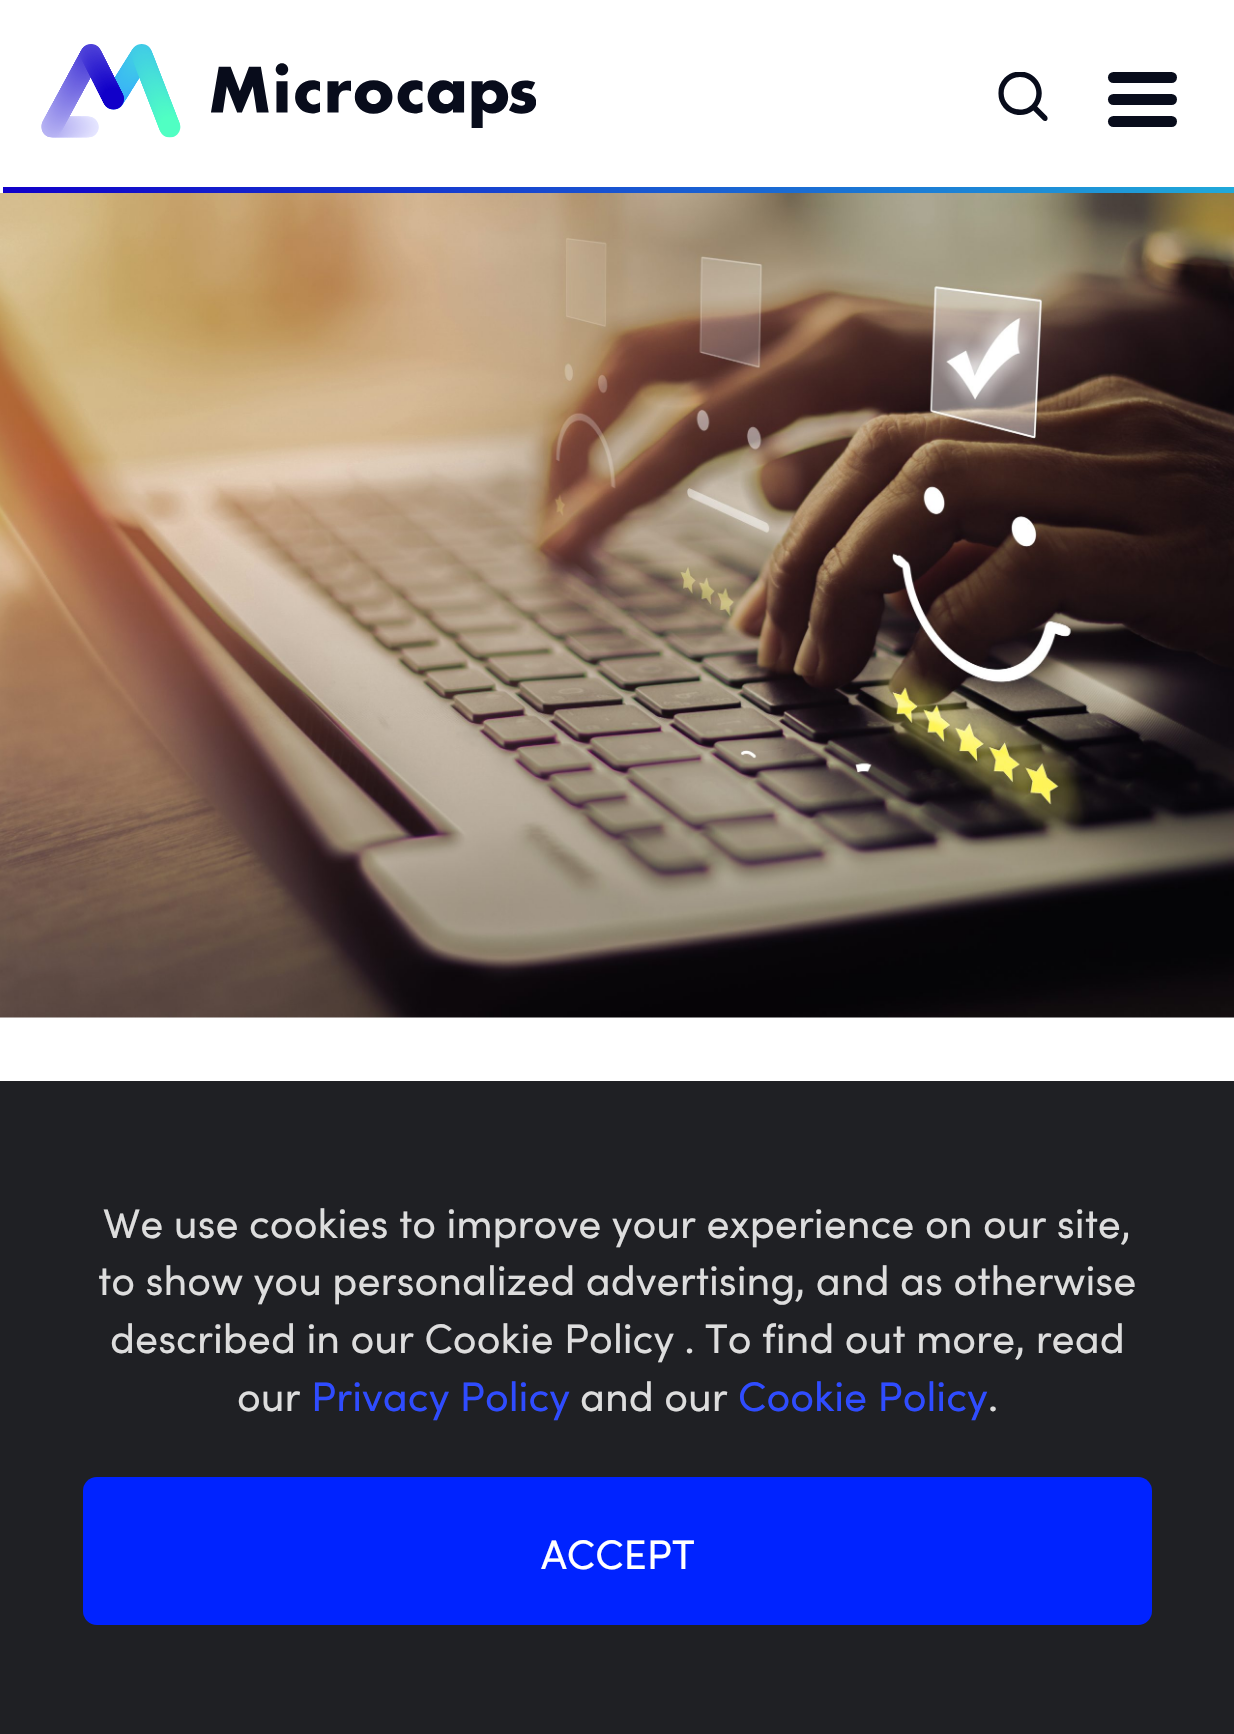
#include "include/core/SkBlurTypes.h"
#include "include/core/SkCanvas.h"
#include "include/core/SkData.h"
#include "include/core/SkFont.h"
#include "include/core/SkFontMgr.h"
#include "include/core/SkImage.h"
#include "include/core/SkMaskFilter.h"
#include "include/core/SkPaint.h"
#include "include/core/SkPathBuilder.h"
#include "include/core/SkTextBlob.h"
#include "include/effects/SkDashPathEffect.h"
#include "include/effects/SkGradientShader.h"
#include "include/utils/SkParsePath.h"

extern sk_sp<SkFontMgr> fontMgr;

void draw(SkCanvas* canvas) {
    SkPaint p;
    p.setAntiAlias(true);
    auto font = [&](const char* family, int weight, float size, bool italic = false) {
        SkFontStyle style(weight, SkFontStyle::kNormal_Width,
            italic ? SkFontStyle::kItalic_Slant : SkFontStyle::kUpright_Slant);
        SkFont result(fontMgr->matchFamilyStyle(family, style), size);
        result.setSubpixel(true);
        return result;
    };
    auto drawPhoto = [&](const char* path, float l, float t, float r, float b) {
        auto image = SkImages::DeferredFromEncodedData(SkData::MakeFromFileName(path));
        canvas->drawImageRect(image, SkRect::MakeLTRB(l, t, r, b), SkSamplingOptions());
    };
    canvas->clear(0xFFFFFFFF);
    drawPhoto("media/1.png", 41, 44, 536, 138);
    drawPhoto("media/2.png", 998, 72, 1048, 121);
    p.setColor(0xFF080C1B);
    canvas->drawRoundRect(SkRect::MakeLTRB(1108, 72, 1177, 83), 5.5f, 5.5f, p);
    canvas->drawRoundRect(SkRect::MakeLTRB(1108, 94, 1177, 105), 5.5f, 5.5f, p);
    canvas->drawRoundRect(SkRect::MakeLTRB(1108, 116, 1177, 127), 5.5f, 5.5f, p);
    {
        const SkColor colors[] = {0xFF1100C9, 0xFF20A9D9};
        const float stops[] = {0, 1};
        const SkPoint ends[] = {{1.4f, 190}, {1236, 190}};
        p.setShader(SkGradientShader::MakeLinear(ends, colors, stops, 2, SkTileMode::kClamp));
        p.setAlpha(255);
    }
    canvas->drawRect(SkRect::MakeLTRB(3, 187, 1234, 193), p);
    drawPhoto("media/3.png", 0, 193, 1234, 1018);
    p.setShader(nullptr);
    p.setColor(0xFF1F2024);
    canvas->drawRect(SkRect::MakeLTRB(0, 1081, 1234, 1734), p);
    auto font1 = font("Sofia", 400, 41.25f);
    p.setColor(0xFFDDDDDD);
    {
        const struct { const char* s; float x, y; } items[] = {
            {"We use cookies to improve your experience on our site,", 103, 1238},
            {"to show you personalized advertising, and as otherwise", 98, 1295},
            {"described in our Cookie Policy . To find out more, read", 110, 1353},
            {"our", 237, 1411},
        };
        for (auto [s, x, y] : items) {
            canvas->drawString(s, x, y, font1, p);
        }
    }
    p.setColor(0xFF2F4CFF);
    canvas->drawString("Privacy Policy", 311, 1411, font1, p);
    p.setColor(0xFFDDDDDD);
    canvas->drawString("and our", 580, 1411, font1, p);
    p.setColor(0xFF2F4CFF);
    canvas->drawString("Cookie Policy", 738, 1411, font1, p);
    p.setColor(0xFFDDDDDD);
    canvas->drawString(".", 988, 1411, font1, p);
    p.setColor(0xFF0023FF);
    canvas->drawRoundRect(SkRect::MakeLTRB(83, 1477, 1152, 1625), 14, 14, p);
    p.setColor(0xFFFFFFFF);
    canvas->drawString("ACCEPT", 541, 1569, font1, p);
}
